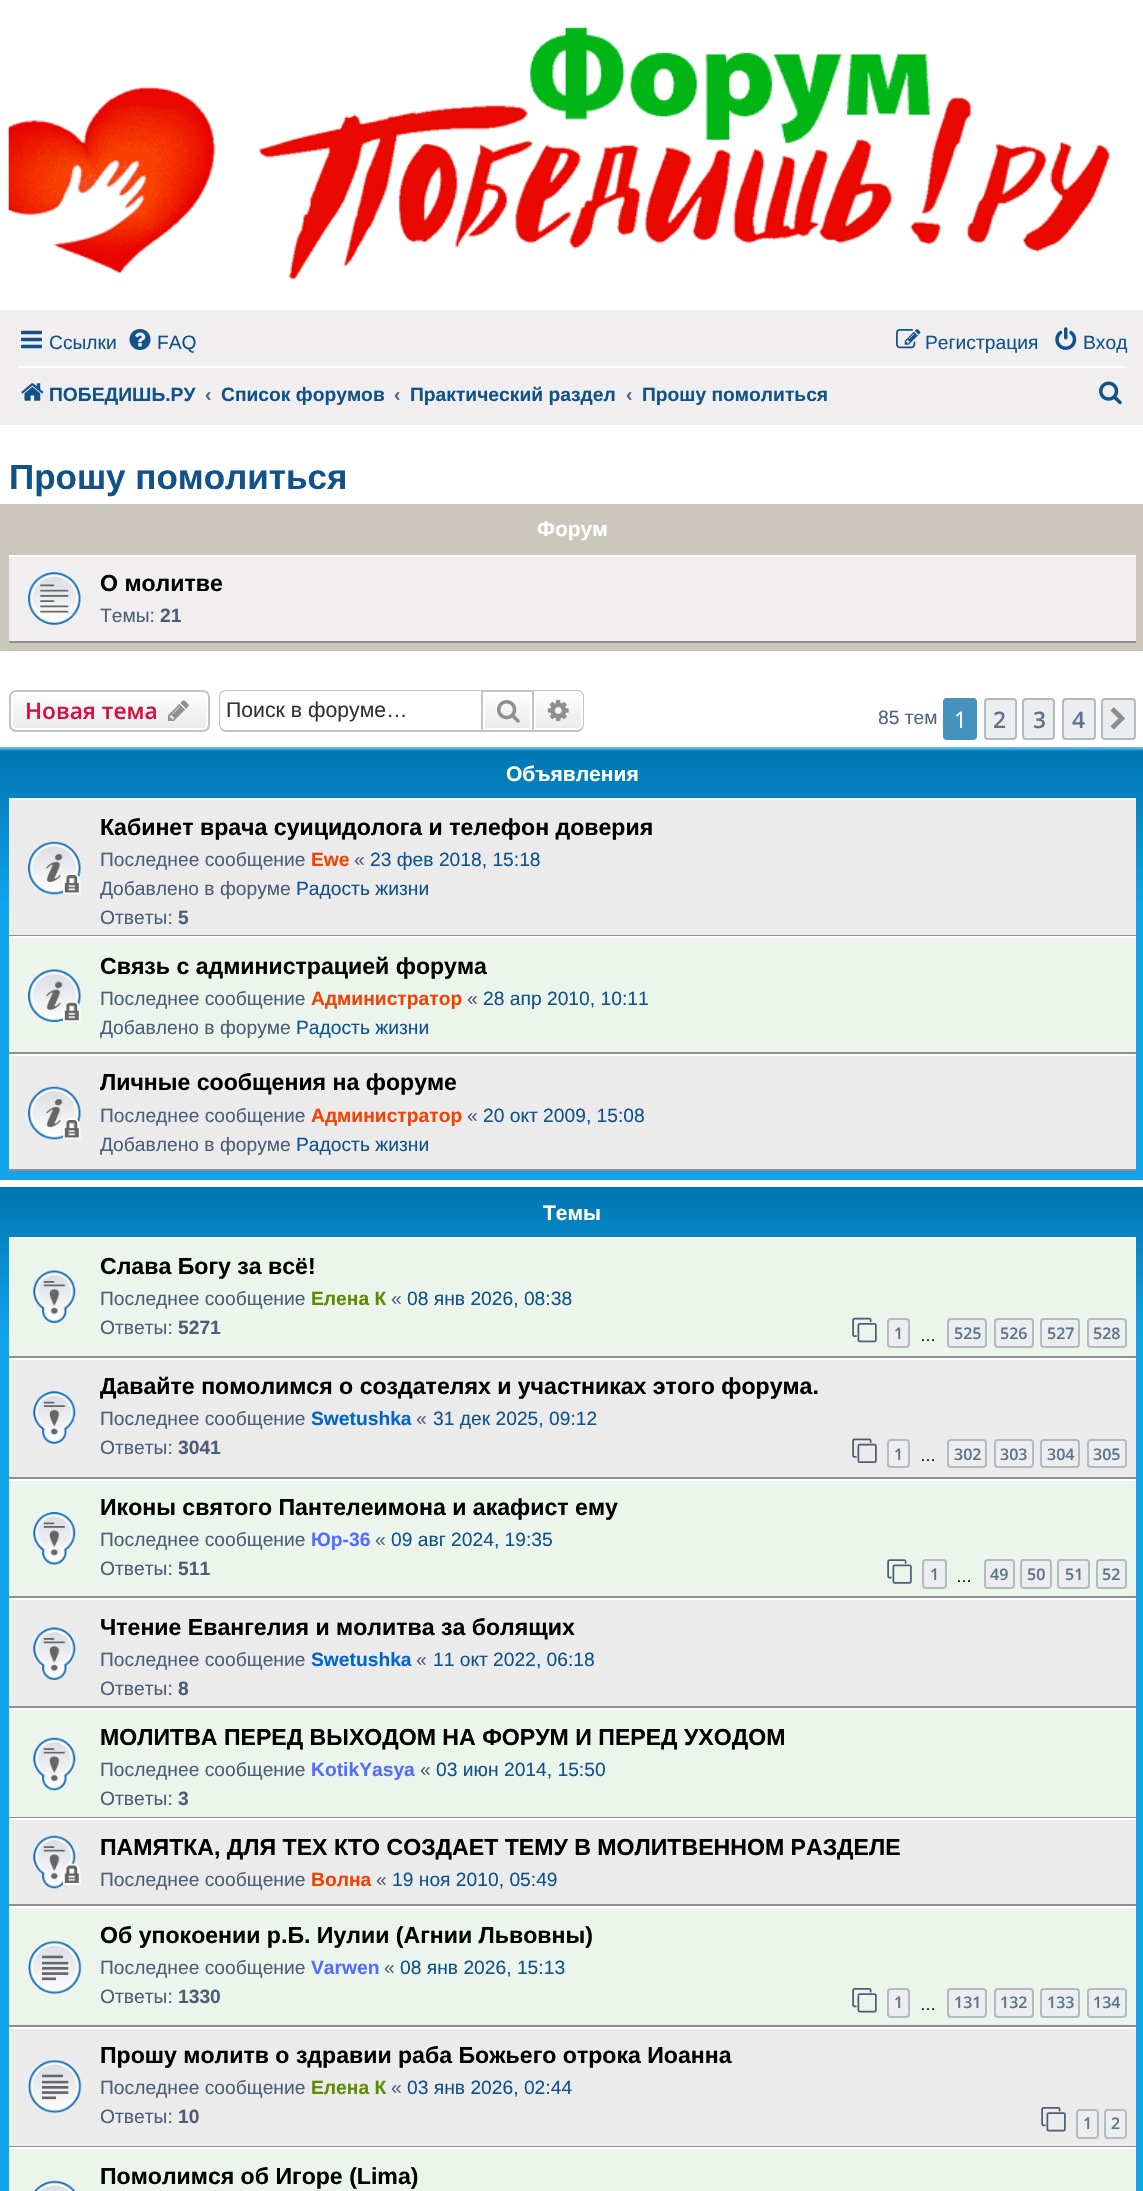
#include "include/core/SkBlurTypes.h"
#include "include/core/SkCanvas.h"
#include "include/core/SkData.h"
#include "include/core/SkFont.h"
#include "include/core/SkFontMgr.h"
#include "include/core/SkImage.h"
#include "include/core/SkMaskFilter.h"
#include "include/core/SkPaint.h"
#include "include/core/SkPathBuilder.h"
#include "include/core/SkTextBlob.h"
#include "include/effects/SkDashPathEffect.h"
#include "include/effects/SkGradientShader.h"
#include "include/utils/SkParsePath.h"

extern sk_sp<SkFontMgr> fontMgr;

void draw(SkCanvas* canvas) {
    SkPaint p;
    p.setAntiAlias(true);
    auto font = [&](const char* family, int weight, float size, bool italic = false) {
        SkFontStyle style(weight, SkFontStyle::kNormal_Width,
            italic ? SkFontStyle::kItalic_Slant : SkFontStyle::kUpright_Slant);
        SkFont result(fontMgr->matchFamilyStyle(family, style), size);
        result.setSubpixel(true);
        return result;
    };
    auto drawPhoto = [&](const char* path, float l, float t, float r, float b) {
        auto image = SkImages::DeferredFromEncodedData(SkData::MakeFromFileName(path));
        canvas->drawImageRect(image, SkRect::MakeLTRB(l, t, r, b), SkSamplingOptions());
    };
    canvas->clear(0xFFFFFFFF);
    drawPhoto("media/1.png", 8, 26, 1110, 280);
    p.setColor(0xFFF0EEEF);
    canvas->drawRect(SkRect::MakeLTRB(0, 310, 1143, 425), p);
    drawPhoto("media/2.png", 21, 330, 42, 349);
    auto font1 = font("Liberation Sans", 400, 19.25f);
    p.setColor(0xFF105289);
    canvas->drawString("Ссылки", 49, 349, font1, p);
    drawPhoto("media/3.png", 129, 329, 151, 350);
    canvas->drawString("FAQ", 157, 349, font1, p);
    drawPhoto("media/4.png", 896, 329, 921, 349);
    canvas->drawString("Регистрация", 925, 349, font1, p);
    drawPhoto("media/5.png", 1055, 327, 1077, 350);
    canvas->drawString("Вход", 1083, 349, font1, p);
    p.setColor(0xFFFFFFFF);
    canvas->drawRect(SkRect::MakeLTRB(18, 366, 1127, 368), p);
    drawPhoto("media/6.png", 21, 383, 44, 401);
    auto font2 = font("Liberation Sans", 700, 19.25f);
    p.setColor(0xFF105289);
    canvas->drawString("ПОБЕДИШЬ.РУ", 49, 401, font2, p);
    p.setColor(0xFF536482);
    canvas->drawString("‹", 205, 401, font2, p);
    p.setColor(0xFF105289);
    canvas->drawString("Список форумов", 221, 401, font2, p);
    p.setColor(0xFF536482);
    canvas->drawString("‹", 394, 401, font2, p);
    p.setColor(0xFF105289);
    canvas->drawString("Практический раздел", 410, 401, font2, p);
    p.setColor(0xFF536482);
    canvas->drawString("‹", 626, 401, font2, p);
    p.setColor(0xFF105289);
    canvas->drawString("Прошу помолиться", 642, 401, font2, p);
    drawPhoto("media/7.png", 1099, 381, 1122, 405);
    auto font3 = font("Liberation Sans", 700, 35);
    canvas->drawString("Прошу помолиться", 9, 489, font3, p);
    p.setColor(0xFFCBC7BC);
    canvas->drawRect(SkRect::MakeLTRB(0, 504, 1143, 651), p);
    auto font4 = font("Liberation Sans", 700, 21);
    p.setColor(0xFFFFFFFF);
    canvas->drawString("Форум", 537, 536, font4, p);
    {
        const struct { float l, t, r, b; SkColor color; } items[] = {
            {9, 557, 1136, 641, 0xFFF0EEEF},
            {9, 555, 1136, 557, 0xFFFFFFFF},
            {9, 641, 1136, 643, 0xFF8F8F8F},
        };
        for (auto [l, t, r, b, color] : items) {
            p.setColor(color);
            canvas->drawRect(SkRect::MakeLTRB(l, t, r, b), p);
        }
    }
    drawPhoto("media/8.png", 28, 572, 81, 625);
    auto font5 = font("Liberation Sans", 700, 23.1f);
    p.setColor(0xFF000000);
    canvas->drawString("О молитве", 100, 591, font5, p);
    p.setColor(0xFF4C5D77);
    canvas->drawString("Темы:", 100, 622, font1, p);
    canvas->drawString("21", 160, 622, font2, p);
    canvas->save();
    canvas->clipPath(SkPathBuilder().moveTo(16, 690).lineTo(203, 690).cubicTo(207, 690, 210, 693, 210, 697).lineTo(210, 725).cubicTo(210, 729, 207, 732, 203, 732).lineTo(16, 732).cubicTo(12, 732, 9, 729, 9, 725).lineTo(9, 697).cubicTo(9, 693, 12, 690, 16, 690).close().detach(), true);
    {
        const SkColor colors[] = {0xFFFFFFFF, 0xFFE9E9E9};
        const float stops[] = {0, 1};
        const SkPoint ends[] = {{109, 691}, {109, 730}};
        p.setShader(SkGradientShader::MakeLinear(ends, colors, stops, 2, SkTileMode::kClamp));
        p.setAlpha(255);
    }
    canvas->drawRect(SkRect::MakeLTRB(9, 691, 210, 730), p);
    canvas->restore();
    p.setStyle(SkPaint::kStroke_Style);
    p.setStrokeWidth(2);
    p.setShader(nullptr);
    p.setColor(0xFFFFFFFF);
    canvas->drawRoundRect(SkRect::MakeLTRB(12, 692, 207, 729), 4, 4, p);
    p.setColor(0xFFC7C3BF);
    canvas->drawRoundRect(SkRect::MakeLTRB(10, 691, 209, 731), 6, 6, p);
    auto font6 = font("Open Sans", 600, 22.75f);
    p.setStyle(SkPaint::kFill_Style);
    p.setColor(0xFFD31141);
    canvas->drawString("Новая тема", 25, 719, font6, p);
    drawPhoto("media/9.png", 168, 700, 189, 721);
    p.setColor(0xFFC7C3BF);
    canvas->drawPath(SkPathBuilder(SkPathFillType::kEvenOdd).moveTo(226, 690).lineTo(481, 690).lineTo(481, 732).lineTo(226, 732).cubicTo(222, 732, 219, 728, 219, 724).lineTo(219, 696).cubicTo(219, 693, 222, 690, 226, 690).close().moveTo(226, 691).lineTo(481, 691).lineTo(481, 730).lineTo(226, 730).cubicTo(223, 730, 220, 727, 220, 724).lineTo(220, 696).cubicTo(220, 694, 223, 691, 226, 691).close().detach(), p);
    auto font7 = font("Liberation Sans", 400, 21.25f);
    p.setColor(0xFF333333);
    canvas->drawString("Поиск в форуме…", 226, 717, font7, p);
    {
        const SkColor colors[] = {0xFFFFFFFF, 0xFFE9E9E9};
        const float stops[] = {0, 1};
        const SkPoint ends[] = {{508, 691}, {508, 730}};
        p.setShader(SkGradientShader::MakeLinear(ends, colors, stops, 2, SkTileMode::kClamp));
        p.setAlpha(255);
    }
    canvas->drawRect(SkRect::MakeLTRB(485, 695, 530, 728), p);
    p.setStyle(SkPaint::kStroke_Style);
    p.setShader(nullptr);
    p.setColor(0xFFC7C3BF);
    canvas->drawRect(SkRect::MakeLTRB(482, 691, 533, 731), p);
    drawPhoto("media/10.png", 497, 700, 520, 723);
    p.setStyle(SkPaint::kFill_Style);
    {
        const SkColor colors[] = {0xFFFFFFFF, 0xFFE9E9E9};
        const float stops[] = {0, 1};
        const SkPoint ends[] = {{558, 691}, {558, 730}};
        p.setShader(SkGradientShader::MakeLinear(ends, colors, stops, 2, SkTileMode::kClamp));
        p.setAlpha(255);
    }
    canvas->drawPath(SkPathBuilder().moveTo(535, 692).lineTo(578, 692).cubicTo(580, 692, 582, 694, 582, 696).lineTo(582, 725).cubicTo(582, 727, 580, 729, 578, 729).lineTo(535, 729).close().detach(), p);
    p.setStyle(SkPaint::kStroke_Style);
    p.setShader(nullptr);
    p.setColor(0xFFFFFFFF);
    canvas->drawPath(SkPathBuilder().moveTo(535, 692).lineTo(578, 692).cubicTo(580, 692, 582, 694, 582, 696).lineTo(582, 725).cubicTo(582, 727, 580, 729, 578, 729).lineTo(535, 729).close().detach(), p);
    p.setStyle(SkPaint::kFill_Style);
    p.setColor(0xFFC7C3BF);
    canvas->drawPath(SkPathBuilder(SkPathFillType::kEvenOdd).moveTo(534, 690).lineTo(578, 690).cubicTo(581, 690, 584, 693, 584, 696).lineTo(584, 724).cubicTo(584, 728, 581, 732, 578, 732).lineTo(534, 732).close().moveTo(534, 691).lineTo(578, 691).cubicTo(580, 691, 583, 694, 583, 696).lineTo(583, 724).cubicTo(583, 727, 580, 730, 578, 730).lineTo(534, 730).close().detach(), p);
    drawPhoto("media/11.png", 547, 700, 569, 721);
    p.setColor(0xFF536482);
    canvas->drawString("85 тем", 878, 724, font1, p);
    p.setColor(0xFF4692BF);
    canvas->drawRoundRect(SkRect::MakeLTRB(944, 699, 976, 739), 3, 3, p);
    p.setStyle(SkPaint::kStroke_Style);
    canvas->drawRoundRect(SkRect::MakeLTRB(944, 699, 976, 739), 3, 3, p);
    auto font8 = font("Open Sans", 400, 22.75f);
    p.setStyle(SkPaint::kFill_Style);
    p.setColor(0xFFFFFFFF);
    canvas->drawString("1", 954, 728, font8, p);
    p.setColor(0xFFECEDEE);
    canvas->drawRoundRect(SkRect::MakeLTRB(985, 699, 1016, 739), 3, 3, p);
    p.setStyle(SkPaint::kStroke_Style);
    p.setColor(0xFFB4BAC0);
    canvas->drawRoundRect(SkRect::MakeLTRB(985, 699, 1016, 739), 3, 3, p);
    p.setStyle(SkPaint::kFill_Style);
    p.setColor(0xFF5C758C);
    canvas->drawString("2", 993, 728, font6, p);
    p.setColor(0xFFECEDEE);
    canvas->drawRoundRect(SkRect::MakeLTRB(1023, 699, 1054, 739), 3, 3, p);
    p.setStyle(SkPaint::kStroke_Style);
    p.setColor(0xFFB4BAC0);
    canvas->drawRoundRect(SkRect::MakeLTRB(1023, 699, 1054, 739), 3, 3, p);
    p.setStyle(SkPaint::kFill_Style);
    p.setColor(0xFF5C758C);
    canvas->drawString("3", 1033, 728, font6, p);
    p.setColor(0xFFECEDEE);
    canvas->drawRoundRect(SkRect::MakeLTRB(1063, 699, 1095, 739), 3, 3, p);
    p.setStyle(SkPaint::kStroke_Style);
    p.setColor(0xFFB4BAC0);
    canvas->drawRoundRect(SkRect::MakeLTRB(1063, 699, 1095, 739), 3, 3, p);
    p.setStyle(SkPaint::kFill_Style);
    p.setColor(0xFF5C758C);
    canvas->drawString("4", 1072, 728, font6, p);
    p.setColor(0xFFECEDEE);
    canvas->drawRoundRect(SkRect::MakeLTRB(1102, 699, 1135, 739), 3, 3, p);
    p.setStyle(SkPaint::kStroke_Style);
    p.setColor(0xFFB4BAC0);
    canvas->drawRoundRect(SkRect::MakeLTRB(1102, 699, 1135, 739), 3, 3, p);
    drawPhoto("media/12.png", 1110, 707, 1125, 730);
    p.setStyle(SkPaint::kFill_Style);
    {
        const SkColor colors[] = {0xFF6ACEFF, 0xFF0076B1, 0xFF12A3EB, 0xFF12A3EB};
        const float stops[] = {0, 0.01f, 0.37f, 1};
        const SkPoint ends[] = {{572, 747}, {572, 1180}};
        p.setShader(SkGradientShader::MakeLinear(ends, colors, stops, 4, SkTileMode::kClamp));
        p.setAlpha(255);
    }
    canvas->drawRect(SkRect::MakeLTRB(0, 747, 1143, 1180), p);
    p.setShader(nullptr);
    p.setColor(0xFFFFFFFF);
    canvas->drawString("Объявления", 506, 781, font4, p);
    {
        const struct { float l, t, r, b; SkColor color; } items[] = {
            {9, 800, 1136, 935, 0xFFEBEBEB},
            {9, 798, 1136, 800, 0xFFFFFFFF},
            {9, 935, 1136, 936, 0xFF8F8F8F},
        };
        for (auto [l, t, r, b, color] : items) {
            p.setColor(color);
            canvas->drawRect(SkRect::MakeLTRB(l, t, r, b), p);
        }
    }
    drawPhoto("media/13.png", 28, 841, 81, 895);
    p.setColor(0xFF000000);
    canvas->drawString("Кабинет врача суицидолога и телефон доверия", 100, 835, font5, p);
    p.setColor(0xFF4C5D77);
    canvas->drawString("Последнее сообщение", 100, 866, font1, p);
    p.setColor(0xFFEF4306);
    canvas->drawString("Ewe", 311, 866, font2, p);
    p.setColor(0xFF4C5D77);
    canvas->drawString("«", 354, 866, font1, p);
    p.setColor(0xFF105289);
    canvas->drawString("23 фев 2018, 15:18", 370, 866, font1, p);
    p.setColor(0xFF4C5D77);
    canvas->drawString("Добавлено в форуме", 100, 895, font1, p);
    p.setColor(0xFF105289);
    canvas->drawString("Радость жизни", 296, 895, font1, p);
    p.setColor(0xFF4C5D77);
    canvas->drawString("Ответы:", 100, 924, font1, p);
    canvas->drawString("5", 178, 924, font2, p);
    {
        const struct { float l, t, r, b; SkColor color; } items[] = {
            {9, 938, 1136, 1052, 0xFFEBF5EB},
            {9, 936, 1136, 938, 0xFFFFFFFF},
            {9, 1052, 1136, 1054, 0xFF8F8F8F},
        };
        for (auto [l, t, r, b, color] : items) {
            p.setColor(color);
            canvas->drawRect(SkRect::MakeLTRB(l, t, r, b), p);
        }
    }
    drawPhoto("media/14.png", 28, 969, 81, 1022);
    p.setColor(0xFF000000);
    canvas->drawString("Связь с администрацией форума", 100, 974, font5, p);
    p.setColor(0xFF4C5D77);
    canvas->drawString("Последнее сообщение", 100, 1005, font1, p);
    p.setColor(0xFFEF4306);
    canvas->drawString("Администратор", 311, 1005, font2, p);
    p.setColor(0xFF4C5D77);
    canvas->drawString("«", 467, 1005, font1, p);
    p.setColor(0xFF105289);
    canvas->drawString("28 апр 2010, 10:11", 483, 1005, font1, p);
    p.setColor(0xFF4C5D77);
    canvas->drawString("Добавлено в форуме", 100, 1034, font1, p);
    p.setColor(0xFF105289);
    canvas->drawString("Радость жизни", 296, 1034, font1, p);
    {
        const struct { float l, t, r, b; SkColor color; } items[] = {
            {9, 1056, 1136, 1169, 0xFFEBEBEB},
            {9, 1054, 1136, 1056, 0xFFFFFFFF},
            {9, 1169, 1136, 1171, 0xFF8F8F8F},
        };
        for (auto [l, t, r, b, color] : items) {
            p.setColor(color);
            canvas->drawRect(SkRect::MakeLTRB(l, t, r, b), p);
        }
    }
    drawPhoto("media/13.png", 28, 1086, 81, 1140);
    p.setColor(0xFF000000);
    canvas->drawString("Личные сообщения на форуме", 100, 1090, font5, p);
    p.setColor(0xFF4C5D77);
    canvas->drawString("Последнее сообщение", 100, 1122, font1, p);
    p.setColor(0xFFEF4306);
    canvas->drawString("Администратор", 311, 1122, font2, p);
    p.setColor(0xFF4C5D77);
    canvas->drawString("«", 467, 1122, font1, p);
    p.setColor(0xFF105289);
    canvas->drawString("20 окт 2009, 15:08", 483, 1122, font1, p);
    p.setColor(0xFF4C5D77);
    canvas->drawString("Добавлено в форуме", 100, 1151, font1, p);
    p.setColor(0xFF105289);
    canvas->drawString("Радость жизни", 296, 1151, font1, p);
    {
        const SkColor colors[] = {0xFF6ACEFF, 0xFF0076B1, 0xFF12A3EB, 0xFF12A3EB};
        const float stops[] = {0, 0, 0.05f, 1};
        const SkPoint ends[] = {{572, 1187}, {572, 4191}};
        p.setShader(SkGradientShader::MakeLinear(ends, colors, stops, 4, SkTileMode::kClamp));
        p.setAlpha(255);
    }
    canvas->drawRect(SkRect::MakeLTRB(0, 1187, 1143, 2191), p);
    p.setShader(nullptr);
    p.setColor(0xFFFFFFFF);
    canvas->drawString("Темы", 543, 1220, font4, p);
    {
        const struct { float l, t, r, b; SkColor color; } items[] = {
            {9, 1239, 1136, 1356, 0xFFEBF5EB},
            {9, 1237, 1136, 1239, 0xFFFFFFFF},
            {9, 1356, 1136, 1358, 0xFF8F8F8F},
        };
        for (auto [l, t, r, b, color] : items) {
            p.setColor(color);
            canvas->drawRect(SkRect::MakeLTRB(l, t, r, b), p);
        }
    }
    drawPhoto("media/15.png", 33, 1270, 76, 1323);
    p.setColor(0xFF000000);
    canvas->drawString("Слава Богу за всё!", 100, 1274, font5, p);
    p.setColor(0xFF4C5D77);
    canvas->drawString("Последнее сообщение", 100, 1305, font1, p);
    p.setColor(0xFF5D8C02);
    canvas->drawString("Елена К", 311, 1305, font2, p);
    p.setColor(0xFF4C5D77);
    canvas->drawString("«", 391, 1305, font1, p);
    p.setColor(0xFF105289);
    canvas->drawString("08 янв 2026, 08:38", 407, 1305, font1, p);
    p.setColor(0xFF4C5D77);
    canvas->drawString("Ответы:", 100, 1334, font1, p);
    canvas->drawString("5271", 178, 1334, font2, p);
    drawPhoto("media/16.png", 852, 1317, 877, 1343);
    p.setColor(0xFFECEDEE);
    canvas->drawRoundRect(SkRect::MakeLTRB(888, 1319, 909, 1347), 3, 3, p);
    p.setStyle(SkPaint::kStroke_Style);
    p.setColor(0xFFB4BAC0);
    canvas->drawRoundRect(SkRect::MakeLTRB(888, 1319, 909, 1347), 3, 3, p);
    auto font9 = font("Open Sans", 600, 16);
    p.setStyle(SkPaint::kFill_Style);
    p.setColor(0xFF5C758C);
    canvas->drawString("1", 894, 1339, font9, p);
    auto font10 = font("Liberation Sans", 400, 16);
    p.setColor(0xFF000000);
    canvas->drawString("…", 920, 1341, font10, p);
    p.setColor(0xFFECEDEE);
    canvas->drawRoundRect(SkRect::MakeLTRB(948, 1319, 986, 1347), 3, 3, p);
    p.setStyle(SkPaint::kStroke_Style);
    p.setColor(0xFFB4BAC0);
    canvas->drawRoundRect(SkRect::MakeLTRB(948, 1319, 986, 1347), 3, 3, p);
    p.setStyle(SkPaint::kFill_Style);
    p.setColor(0xFF5C758C);
    canvas->drawString("525", 954, 1339, font9, p);
    p.setColor(0xFFECEDEE);
    canvas->drawRoundRect(SkRect::MakeLTRB(995, 1319, 1033, 1347), 3, 3, p);
    p.setStyle(SkPaint::kStroke_Style);
    p.setColor(0xFFB4BAC0);
    canvas->drawRoundRect(SkRect::MakeLTRB(995, 1319, 1033, 1347), 3, 3, p);
    p.setStyle(SkPaint::kFill_Style);
    p.setColor(0xFF5C758C);
    canvas->drawString("526", 1000, 1339, font9, p);
    p.setColor(0xFFECEDEE);
    canvas->drawRoundRect(SkRect::MakeLTRB(1041, 1319, 1079, 1347), 3, 3, p);
    p.setStyle(SkPaint::kStroke_Style);
    p.setColor(0xFFB4BAC0);
    canvas->drawRoundRect(SkRect::MakeLTRB(1041, 1319, 1079, 1347), 3, 3, p);
    p.setStyle(SkPaint::kFill_Style);
    p.setColor(0xFF5C758C);
    canvas->drawString("527", 1047, 1339, font9, p);
    p.setColor(0xFFECEDEE);
    canvas->drawRoundRect(SkRect::MakeLTRB(1088, 1319, 1126, 1347), 3, 3, p);
    p.setStyle(SkPaint::kStroke_Style);
    p.setColor(0xFFB4BAC0);
    canvas->drawRoundRect(SkRect::MakeLTRB(1088, 1319, 1126, 1347), 3, 3, p);
    p.setStyle(SkPaint::kFill_Style);
    p.setColor(0xFF5C758C);
    canvas->drawString("528", 1093, 1339, font9, p);
    {
        const struct { float l, t, r, b; SkColor color; } items[] = {
            {9, 1360, 1136, 1477, 0xFFEBEBEB},
            {9, 1358, 1136, 1360, 0xFFFFFFFF},
            {9, 1477, 1136, 1479, 0xFF8F8F8F},
        };
        for (auto [l, t, r, b, color] : items) {
            p.setColor(color);
            canvas->drawRect(SkRect::MakeLTRB(l, t, r, b), p);
        }
    }
    drawPhoto("media/17.png", 33, 1391, 76, 1444);
    p.setColor(0xFF000000);
    canvas->drawString("Давайте помолимся о создателях и участниках этого форума.", 100, 1394, font5, p);
    p.setColor(0xFF4C5D77);
    canvas->drawString("Последнее сообщение", 100, 1425, font1, p);
    p.setColor(0xFF0066CC);
    canvas->drawString("Swetushka", 311, 1425, font2, p);
    p.setColor(0xFF4C5D77);
    canvas->drawString("«", 416, 1425, font1, p);
    p.setColor(0xFF105289);
    canvas->drawString("31 дек 2025, 09:12", 433, 1425, font1, p);
    p.setColor(0xFF4C5D77);
    canvas->drawString("Ответы:", 100, 1454, font1, p);
    canvas->drawString("3041", 178, 1454, font2, p);
    drawPhoto("media/18.png", 852, 1438, 877, 1463);
    p.setColor(0xFFECEDEE);
    canvas->drawRoundRect(SkRect::MakeLTRB(888, 1440, 909, 1467), 3, 3, p);
    p.setStyle(SkPaint::kStroke_Style);
    p.setColor(0xFFB4BAC0);
    canvas->drawRoundRect(SkRect::MakeLTRB(888, 1440, 909, 1467), 3, 3, p);
    p.setStyle(SkPaint::kFill_Style);
    p.setColor(0xFF5C758C);
    canvas->drawString("1", 894, 1460, font9, p);
    p.setColor(0xFF000000);
    canvas->drawString("…", 920, 1461, font10, p);
    p.setColor(0xFFECEDEE);
    canvas->drawRoundRect(SkRect::MakeLTRB(948, 1440, 986, 1467), 3, 3, p);
    p.setStyle(SkPaint::kStroke_Style);
    p.setColor(0xFFB4BAC0);
    canvas->drawRoundRect(SkRect::MakeLTRB(948, 1440, 986, 1467), 3, 3, p);
    p.setStyle(SkPaint::kFill_Style);
    p.setColor(0xFF5C758C);
    canvas->drawString("302", 954, 1460, font9, p);
    p.setColor(0xFFECEDEE);
    canvas->drawRoundRect(SkRect::MakeLTRB(995, 1440, 1033, 1467), 3, 3, p);
    p.setStyle(SkPaint::kStroke_Style);
    p.setColor(0xFFB4BAC0);
    canvas->drawRoundRect(SkRect::MakeLTRB(995, 1440, 1033, 1467), 3, 3, p);
    p.setStyle(SkPaint::kFill_Style);
    p.setColor(0xFF5C758C);
    canvas->drawString("303", 1000, 1460, font9, p);
    p.setColor(0xFFECEDEE);
    canvas->drawRoundRect(SkRect::MakeLTRB(1041, 1440, 1079, 1467), 3, 3, p);
    p.setStyle(SkPaint::kStroke_Style);
    p.setColor(0xFFB4BAC0);
    canvas->drawRoundRect(SkRect::MakeLTRB(1041, 1440, 1079, 1467), 3, 3, p);
    p.setStyle(SkPaint::kFill_Style);
    p.setColor(0xFF5C758C);
    canvas->drawString("304", 1047, 1460, font9, p);
    p.setColor(0xFFECEDEE);
    canvas->drawRoundRect(SkRect::MakeLTRB(1088, 1440, 1126, 1467), 3, 3, p);
    p.setStyle(SkPaint::kStroke_Style);
    p.setColor(0xFFB4BAC0);
    canvas->drawRoundRect(SkRect::MakeLTRB(1088, 1440, 1126, 1467), 3, 3, p);
    p.setStyle(SkPaint::kFill_Style);
    p.setColor(0xFF5C758C);
    canvas->drawString("305", 1093, 1460, font9, p);
    {
        const struct { float l, t, r, b; SkColor color; } items[] = {
            {9, 1481, 1136, 1596, 0xFFEBF5EB},
            {9, 1479, 1136, 1481, 0xFFFFFFFF},
            {9, 1596, 1136, 1598, 0xFF8F8F8F},
        };
        for (auto [l, t, r, b, color] : items) {
            p.setColor(color);
            canvas->drawRect(SkRect::MakeLTRB(l, t, r, b), p);
        }
    }
    drawPhoto("media/19.png", 33, 1512, 76, 1565);
    p.setColor(0xFF000000);
    canvas->drawString("Иконы святого Пантелеимона и акафист ему", 100, 1515, font5, p);
    p.setColor(0xFF4C5D77);
    canvas->drawString("Последнее сообщение", 100, 1546, font1, p);
    p.setColor(0xFF546CFF);
    canvas->drawString("Юр-36", 311, 1546, font2, p);
    p.setColor(0xFF4C5D77);
    canvas->drawString("«", 375, 1546, font1, p);
    p.setColor(0xFF105289);
    canvas->drawString("09 авг 2024, 19:35", 391, 1546, font1, p);
    p.setColor(0xFF4C5D77);
    canvas->drawString("Ответы:", 100, 1575, font1, p);
    canvas->drawString("511", 178, 1575, font2, p);
    drawPhoto("media/20.png", 887, 1559, 912, 1584);
    p.setColor(0xFFECEDEE);
    canvas->drawRoundRect(SkRect::MakeLTRB(923, 1560, 946, 1588), 3, 3, p);
    p.setStyle(SkPaint::kStroke_Style);
    p.setColor(0xFFB4BAC0);
    canvas->drawRoundRect(SkRect::MakeLTRB(923, 1560, 946, 1588), 3, 3, p);
    p.setStyle(SkPaint::kFill_Style);
    p.setColor(0xFF5C758C);
    canvas->drawString("1", 930, 1580, font9, p);
    p.setColor(0xFF000000);
    canvas->drawString("…", 956, 1582, font10, p);
    p.setColor(0xFFECEDEE);
    canvas->drawRoundRect(SkRect::MakeLTRB(985, 1560, 1014, 1588), 3, 3, p);
    p.setStyle(SkPaint::kStroke_Style);
    p.setColor(0xFFB4BAC0);
    canvas->drawRoundRect(SkRect::MakeLTRB(985, 1560, 1014, 1588), 3, 3, p);
    p.setStyle(SkPaint::kFill_Style);
    p.setColor(0xFF5C758C);
    canvas->drawString("49", 990, 1580, font9, p);
    p.setColor(0xFFECEDEE);
    canvas->drawRoundRect(SkRect::MakeLTRB(1021, 1560, 1051, 1588), 3, 3, p);
    p.setStyle(SkPaint::kStroke_Style);
    p.setColor(0xFFB4BAC0);
    canvas->drawRoundRect(SkRect::MakeLTRB(1021, 1560, 1051, 1588), 3, 3, p);
    p.setStyle(SkPaint::kFill_Style);
    p.setColor(0xFF5C758C);
    canvas->drawString("50", 1027, 1580, font9, p);
    p.setColor(0xFFECEDEE);
    canvas->drawRoundRect(SkRect::MakeLTRB(1058, 1560, 1089, 1588), 3, 3, p);
    p.setStyle(SkPaint::kStroke_Style);
    p.setColor(0xFFB4BAC0);
    canvas->drawRoundRect(SkRect::MakeLTRB(1058, 1560, 1089, 1588), 3, 3, p);
    p.setStyle(SkPaint::kFill_Style);
    p.setColor(0xFF5C758C);
    canvas->drawString("51", 1065, 1580, font9, p);
    p.setColor(0xFFECEDEE);
    canvas->drawRoundRect(SkRect::MakeLTRB(1097, 1560, 1126, 1588), 3, 3, p);
    p.setStyle(SkPaint::kStroke_Style);
    p.setColor(0xFFB4BAC0);
    canvas->drawRoundRect(SkRect::MakeLTRB(1097, 1560, 1126, 1588), 3, 3, p);
    p.setStyle(SkPaint::kFill_Style);
    p.setColor(0xFF5C758C);
    canvas->drawString("52", 1102, 1580, font9, p);
    {
        const struct { float l, t, r, b; SkColor color; } items[] = {
            {9, 1600, 1136, 1706, 0xFFEBEBEB},
            {9, 1598, 1136, 1600, 0xFFFFFFFF},
            {9, 1706, 1136, 1708, 0xFF8F8F8F},
        };
        for (auto [l, t, r, b, color] : items) {
            p.setColor(color);
            canvas->drawRect(SkRect::MakeLTRB(l, t, r, b), p);
        }
    }
    drawPhoto("media/21.png", 33, 1627, 76, 1680);
    p.setColor(0xFF000000);
    canvas->drawString("Чтение Евангелия и молитва за болящих", 100, 1635, font5, p);
    p.setColor(0xFF4C5D77);
    canvas->drawString("Последнее сообщение", 100, 1666, font1, p);
    p.setColor(0xFF0066CC);
    canvas->drawString("Swetushka", 311, 1666, font2, p);
    p.setColor(0xFF4C5D77);
    canvas->drawString("«", 416, 1666, font1, p);
    p.setColor(0xFF105289);
    canvas->drawString("11 окт 2022, 06:18", 433, 1666, font1, p);
    p.setColor(0xFF4C5D77);
    canvas->drawString("Ответы:", 100, 1695, font1, p);
    canvas->drawString("8", 178, 1695, font2, p);
    {
        const struct { float l, t, r, b; SkColor color; } items[] = {
            {9, 1710, 1136, 1817, 0xFFEBF5EB},
            {9, 1708, 1136, 1710, 0xFFFFFFFF},
            {9, 1817, 1136, 1818, 0xFF8F8F8F},
        };
        for (auto [l, t, r, b, color] : items) {
            p.setColor(color);
            canvas->drawRect(SkRect::MakeLTRB(l, t, r, b), p);
        }
    }
    drawPhoto("media/22.png", 33, 1737, 76, 1791);
    p.setColor(0xFF000000);
    canvas->drawString("МОЛИТВА ПЕРЕД ВЫХОДОМ НА ФОРУМ И ПЕРЕД УХОДОМ", 100, 1745, font5, p);
    p.setColor(0xFF4C5D77);
    canvas->drawString("Последнее сообщение", 100, 1776, font1, p);
    p.setColor(0xFF546CFF);
    canvas->drawString("KotikYasya", 311, 1776, font2, p);
    p.setColor(0xFF4C5D77);
    canvas->drawString("«", 420, 1776, font1, p);
    p.setColor(0xFF105289);
    canvas->drawString("03 июн 2014, 15:50", 436, 1776, font1, p);
    p.setColor(0xFF4C5D77);
    canvas->drawString("Ответы:", 100, 1805, font1, p);
    canvas->drawString("3", 178, 1805, font2, p);
    {
        const struct { float l, t, r, b; SkColor color; } items[] = {
            {9, 1820, 1136, 1904, 0xFFEBEBEB},
            {9, 1818, 1136, 1820, 0xFFFFFFFF},
            {9, 1904, 1136, 1906, 0xFF8F8F8F},
        };
        for (auto [l, t, r, b, color] : items) {
            p.setColor(color);
            canvas->drawRect(SkRect::MakeLTRB(l, t, r, b), p);
        }
    }
    drawPhoto("media/23.png", 33, 1835, 81, 1889);
    p.setColor(0xFF000000);
    canvas->drawString("ПАМЯТКА, ДЛЯ ТЕХ КТО СОЗДАЕТ ТЕМУ В МОЛИТВЕННОМ РАЗДЕЛЕ", 100, 1855, font5, p);
    p.setColor(0xFF4C5D77);
    canvas->drawString("Последнее сообщение", 100, 1886, font1, p);
    p.setColor(0xFFEF4306);
    canvas->drawString("Волна", 311, 1886, font2, p);
    p.setColor(0xFF4C5D77);
    canvas->drawString("«", 376, 1886, font1, p);
    p.setColor(0xFF105289);
    canvas->drawString("19 ноя 2010, 05:49", 392, 1886, font1, p);
    {
        const struct { float l, t, r, b; SkColor color; } items[] = {
            {9, 1908, 1136, 2025, 0xFFEBF5EB},
            {9, 1906, 1136, 1908, 0xFFFFFFFF},
            {9, 2025, 1136, 2027, 0xFF8F8F8F},
        };
        for (auto [l, t, r, b, color] : items) {
            p.setColor(color);
            canvas->drawRect(SkRect::MakeLTRB(l, t, r, b), p);
        }
    }
    drawPhoto("media/24.png", 28, 1940, 82, 1995);
    p.setColor(0xFF000000);
    canvas->drawString("Об упокоении р.Б. Иулии (Агнии Львовны)", 100, 1943, font5, p);
    p.setColor(0xFF4C5D77);
    canvas->drawString("Последнее сообщение", 100, 1974, font1, p);
    p.setColor(0xFF546CFF);
    canvas->drawString("Varwen", 311, 1974, font2, p);
    p.setColor(0xFF4C5D77);
    canvas->drawString("«", 384, 1974, font1, p);
    p.setColor(0xFF105289);
    canvas->drawString("08 янв 2026, 15:13", 400, 1974, font1, p);
    p.setColor(0xFF4C5D77);
    canvas->drawString("Ответы:", 100, 2003, font1, p);
    canvas->drawString("1330", 178, 2003, font2, p);
    drawPhoto("media/25.png", 852, 1988, 877, 2013);
    p.setColor(0xFFECEDEE);
    canvas->drawRoundRect(SkRect::MakeLTRB(888, 1989, 909, 2017), 3, 3, p);
    p.setStyle(SkPaint::kStroke_Style);
    p.setColor(0xFFB4BAC0);
    canvas->drawRoundRect(SkRect::MakeLTRB(888, 1989, 909, 2017), 3, 3, p);
    p.setStyle(SkPaint::kFill_Style);
    p.setColor(0xFF5C758C);
    canvas->drawString("1", 894, 2008, font9, p);
    p.setColor(0xFF000000);
    canvas->drawString("…", 920, 2010, font10, p);
    p.setColor(0xFFECEDEE);
    canvas->drawRoundRect(SkRect::MakeLTRB(948, 1989, 986, 2017), 3, 3, p);
    p.setStyle(SkPaint::kStroke_Style);
    p.setColor(0xFFB4BAC0);
    canvas->drawRoundRect(SkRect::MakeLTRB(948, 1989, 986, 2017), 3, 3, p);
    p.setStyle(SkPaint::kFill_Style);
    p.setColor(0xFF5C758C);
    canvas->drawString("131", 954, 2008, font9, p);
    p.setColor(0xFFECEDEE);
    canvas->drawRoundRect(SkRect::MakeLTRB(995, 1989, 1033, 2017), 3, 3, p);
    p.setStyle(SkPaint::kStroke_Style);
    p.setColor(0xFFB4BAC0);
    canvas->drawRoundRect(SkRect::MakeLTRB(995, 1989, 1033, 2017), 3, 3, p);
    p.setStyle(SkPaint::kFill_Style);
    p.setColor(0xFF5C758C);
    canvas->drawString("132", 1000, 2008, font9, p);
    p.setColor(0xFFECEDEE);
    canvas->drawRoundRect(SkRect::MakeLTRB(1041, 1989, 1079, 2017), 3, 3, p);
    p.setStyle(SkPaint::kStroke_Style);
    p.setColor(0xFFB4BAC0);
    canvas->drawRoundRect(SkRect::MakeLTRB(1041, 1989, 1079, 2017), 3, 3, p);
    p.setStyle(SkPaint::kFill_Style);
    p.setColor(0xFF5C758C);
    canvas->drawString("133", 1047, 2008, font9, p);
    p.setColor(0xFFECEDEE);
    canvas->drawRoundRect(SkRect::MakeLTRB(1088, 1989, 1126, 2017), 3, 3, p);
    p.setStyle(SkPaint::kStroke_Style);
    p.setColor(0xFFB4BAC0);
    canvas->drawRoundRect(SkRect::MakeLTRB(1088, 1989, 1126, 2017), 3, 3, p);
    p.setStyle(SkPaint::kFill_Style);
    p.setColor(0xFF5C758C);
    canvas->drawString("134", 1093, 2008, font9, p);
    {
        const struct { float l, t, r, b; SkColor color; } items[] = {
            {9, 2029, 1136, 2146, 0xFFEBEBEB},
            {9, 2027, 1136, 2029, 0xFFFFFFFF},
            {9, 2146, 1136, 2147, 0xFF8F8F8F},
        };
        for (auto [l, t, r, b, color] : items) {
            p.setColor(color);
            canvas->drawRect(SkRect::MakeLTRB(l, t, r, b), p);
        }
    }
    drawPhoto("media/26.png", 28, 2059, 82, 2114);
    p.setColor(0xFF000000);
    canvas->drawString("Прошу молитв о здравии раба Божьего отрока Иоанна", 100, 2063, font5, p);
    p.setColor(0xFF4C5D77);
    canvas->drawString("Последнее сообщение", 100, 2094, font1, p);
    p.setColor(0xFF5D8C02);
    canvas->drawString("Елена К", 311, 2094, font2, p);
    p.setColor(0xFF4C5D77);
    canvas->drawString("«", 391, 2094, font1, p);
    p.setColor(0xFF105289);
    canvas->drawString("03 янв 2026, 02:44", 407, 2094, font1, p);
    p.setColor(0xFF4C5D77);
    canvas->drawString("Ответы:", 100, 2123, font1, p);
    canvas->drawString("10", 178, 2123, font2, p);
    drawPhoto("media/27.png", 1041, 2107, 1066, 2132);
    p.setColor(0xFFECEDEE);
    canvas->drawRoundRect(SkRect::MakeLTRB(1077, 2110, 1098, 2138), 3, 3, p);
    p.setStyle(SkPaint::kStroke_Style);
    p.setColor(0xFFB4BAC0);
    canvas->drawRoundRect(SkRect::MakeLTRB(1077, 2110, 1098, 2138), 3, 3, p);
    p.setStyle(SkPaint::kFill_Style);
    p.setColor(0xFF5C758C);
    canvas->drawString("1", 1083, 2129, font9, p);
    p.setColor(0xFFECEDEE);
    canvas->drawRoundRect(SkRect::MakeLTRB(1105, 2110, 1126, 2138), 3, 3, p);
    p.setStyle(SkPaint::kStroke_Style);
    p.setColor(0xFFB4BAC0);
    canvas->drawRoundRect(SkRect::MakeLTRB(1105, 2110, 1126, 2138), 3, 3, p);
    p.setStyle(SkPaint::kFill_Style);
    p.setColor(0xFF5C758C);
    canvas->drawString("2", 1111, 2129, font9, p);
    p.setColor(0xFFEBF5EB);
    canvas->drawRect(SkRect::MakeLTRB(9, 2149, 1136, 2191), p);
    p.setColor(0xFFFFFFFF);
    canvas->drawRect(SkRect::MakeLTRB(9, 2147, 1136, 2149), p);
    drawPhoto("media/28.png", 34, 2180, 76, 2191);
    p.setColor(0xFF000000);
    canvas->drawString("Помолимся об Игоре (Lima)", 100, 2184, font5, p);
}
